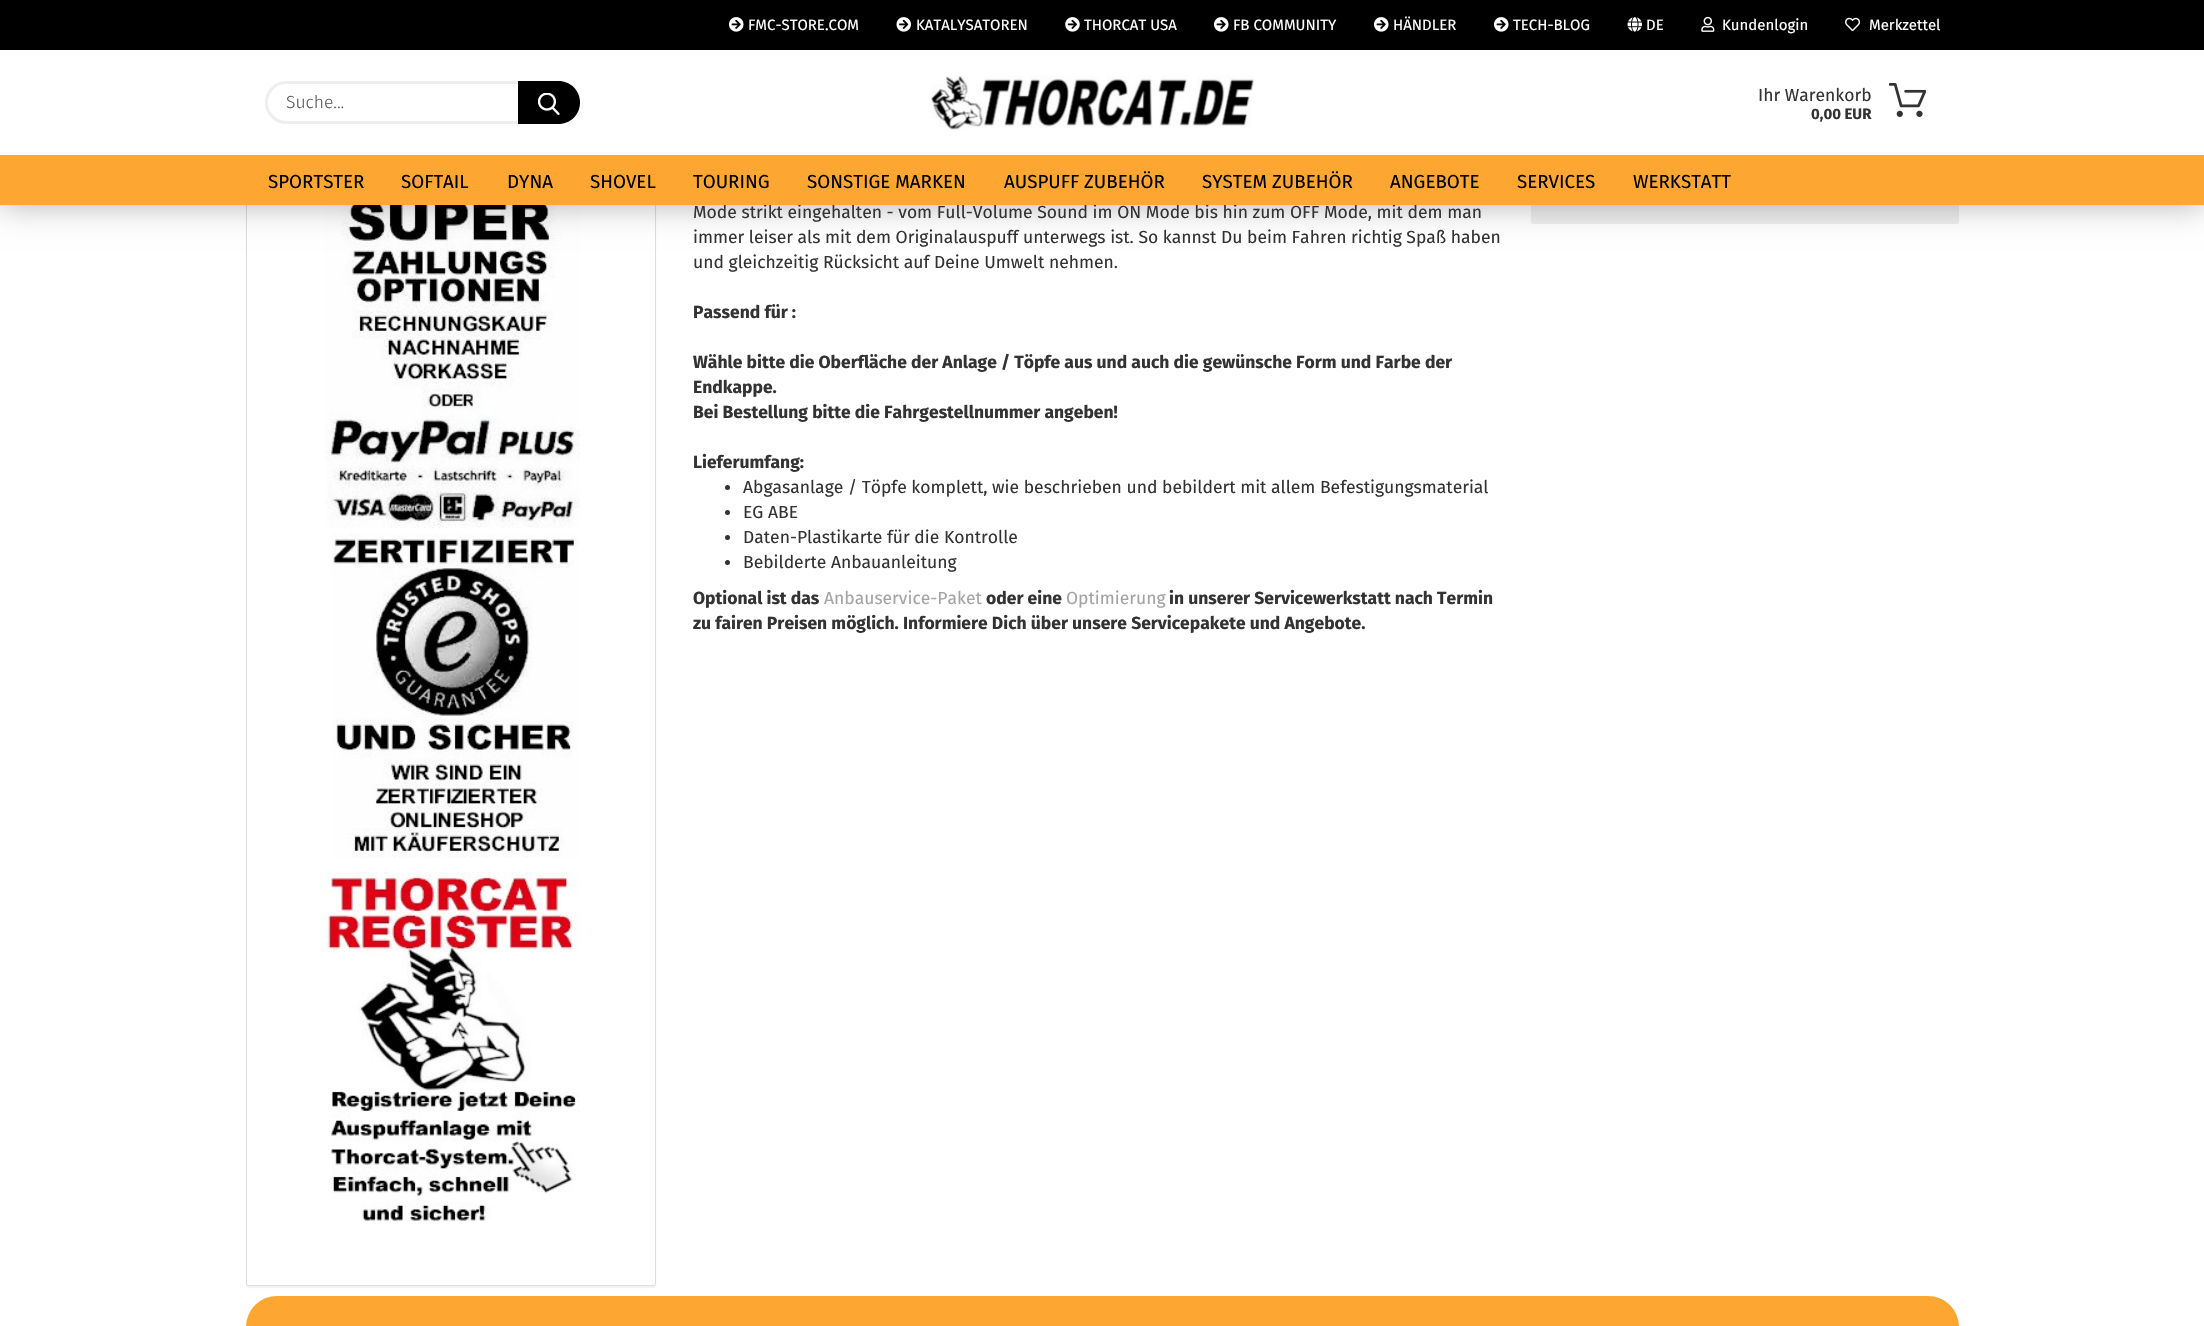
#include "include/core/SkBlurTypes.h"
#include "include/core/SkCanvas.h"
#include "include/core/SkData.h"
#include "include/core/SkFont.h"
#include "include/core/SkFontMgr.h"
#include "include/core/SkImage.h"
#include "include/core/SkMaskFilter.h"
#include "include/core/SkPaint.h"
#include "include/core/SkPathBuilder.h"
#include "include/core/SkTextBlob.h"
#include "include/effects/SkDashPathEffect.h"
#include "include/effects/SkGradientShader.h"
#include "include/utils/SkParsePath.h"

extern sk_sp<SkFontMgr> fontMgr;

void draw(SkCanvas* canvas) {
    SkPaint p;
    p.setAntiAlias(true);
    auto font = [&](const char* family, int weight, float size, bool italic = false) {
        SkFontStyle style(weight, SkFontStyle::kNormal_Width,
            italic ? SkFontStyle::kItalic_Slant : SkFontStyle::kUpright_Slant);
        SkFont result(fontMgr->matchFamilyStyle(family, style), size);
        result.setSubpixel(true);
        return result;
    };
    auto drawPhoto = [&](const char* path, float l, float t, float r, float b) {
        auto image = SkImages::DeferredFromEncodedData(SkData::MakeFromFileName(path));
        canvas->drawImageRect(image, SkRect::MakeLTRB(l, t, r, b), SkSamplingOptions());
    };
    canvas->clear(0xFFFFFFFF);
    p.setColor(0x0D000000);
    p.setMaskFilter(SkMaskFilter::MakeBlur(kNormal_SkBlurStyle, 0.5f));
    canvas->drawRoundRect(SkRect::MakeLTRB(246, 118, 656, 1288), 2.5f, 2.5f, p);
    p.setMaskFilter(nullptr);
    p.setColor(0xFFFFFFFF);
    canvas->drawRoundRect(SkRect::MakeLTRB(246.5f, 116.5f, 655.5f, 1285.5f), 2, 2, p);
    p.setStyle(SkPaint::kStroke_Style);
    p.setStrokeWidth(1);
    p.setColor(0xFFDDDDDD);
    canvas->drawRoundRect(SkRect::MakeLTRB(246.5f, 116.5f, 655.5f, 1285.5f), 2, 2, p);
    drawPhoto("media/10.png", 325, 205, 580, 529);
    p.setStyle(SkPaint::kFill_Style);
    p.setColor(0xFFEEEEEE);
    canvas->drawRoundRect(SkRect::MakeLTRB(1531, -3, 1959, 224), 2.5f, 2.5f, p);
    p.setColor(0x4D000000);
    p.setMaskFilter(SkMaskFilter::MakeBlur(kNormal_SkBlurStyle, 15.5f));
    canvas->drawRect(SkRect::MakeLTRB(0, 0, 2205, 205), p);
    p.setMaskFilter(nullptr);
    p.setColor(0xFFFFFFFF);
    canvas->drawRect(SkRect::MakeLTRB(0, 50, 2204, 155), p);
    p.setColor(0xFF000000);
    canvas->drawRect(SkRect::MakeLTRB(0, 0, 2204, 50), p);
    drawPhoto("media/1.png", 729, 17, 744, 32);
    auto font1 = font("Fira Sans", 400, 15);
    p.setColor(0xFFFFFFFF);
    canvas->drawString("FMC-STORE.COM", 748, 30, font1, p);
    drawPhoto("media/2.png", 896, 17, 911, 32);
    canvas->drawString("KATALYSATOREN", 916, 30, font1, p);
    drawPhoto("media/3.png", 1065, 17, 1080, 32);
    canvas->drawString("THORCAT USA", 1084, 30, font1, p);
    drawPhoto("media/1.png", 1214, 17, 1229, 32);
    canvas->drawString("FB COMMUNITY", 1233, 30, font1, p);
    drawPhoto("media/1.png", 1374, 17, 1389, 32);
    canvas->drawString("HÄNDLER", 1393, 30, font1, p);
    drawPhoto("media/1.png", 1494, 17, 1509, 32);
    canvas->drawString("TECH-BLOG", 1513, 30, font1, p);
    drawPhoto("media/4.png", 1627, 17, 1642, 32);
    canvas->drawString("DE", 1646, 30, font1, p);
    drawPhoto("media/5.png", 1701, 16, 1715, 32);
    canvas->drawString("Kundenlogin", 1722, 30, font1, p);
    drawPhoto("media/6.png", 1845, 17, 1860, 31);
    canvas->drawString("Merkzettel", 1869, 30, font1, p);
    p.setStyle(SkPaint::kStroke_Style);
    p.setStrokeWidth(3);
    p.setColor(0xFFEEEEEE);
    canvas->drawRoundRect(SkRect::MakeLTRB(266.5f, 82.5f, 576.5f, 122.5f), 20, 20, p);
    auto font2 = font("Fira Sans", 300, 17.5f);
    p.setStyle(SkPaint::kFill_Style);
    p.setColor(0xFF595959);
    canvas->drawString("Suche...", 286, 108, font2, p);
    p.setColor(0xFF000000);
    canvas->drawPath(SkPathBuilder().moveTo(518, 81).lineTo(558.5f, 81).cubicTo(570.5f, 81, 580, 90.5f, 580, 102.5f).cubicTo(580, 114.5f, 570.5f, 124, 558.5f, 124).lineTo(518, 124).close().detach(), p);
    drawPhoto("media/7.png", 538, 93, 560, 115);
    drawPhoto("media/8.png", 930, 75, 1255, 130);
    auto font3 = font("Fira Sans", 400, 17.5f);
    p.setColor(0xFF333333);
    canvas->drawString("Ihr Warenkorb", 1758, 101, font3, p);
    auto font4 = font("Fira Sans", 700, 15);
    canvas->drawString("0,00 EUR", 1811, 119, font4, p);
    drawPhoto("media/9.png", 1889, 83, 1926, 117);
    canvas->drawString("Mode strikt eingehalten - vom Full-Volume Sound im ON Mode bis hin zum OFF Mode, mit dem man", 693, 218, font3, p);
    p.setColor(0xFFFDA631);
    canvas->drawRect(SkRect::MakeLTRB(0, 155, 2204, 205), p);
    auto font5 = font("Fira Sans", 400, 18.75f);
    p.setColor(0xFF000000);
    {
        const struct { const char* s; float x, y; } items[] = {
            {"SPORTSTER", 268, 188},
            {"SOFTAIL", 401, 188},
            {"DYNA", 507, 188},
            {"SHOVEL", 590, 188},
            {"TOURING", 693, 188},
            {"SONSTIGE MARKEN", 807, 188},
            {"AUSPUFF ZUBEHÖR", 1004, 188},
            {"SYSTEM ZUBEHÖR", 1202, 188},
            {"ANGEBOTE", 1390, 188},
            {"SERVICES", 1517, 188},
            {"WERKSTATT", 1633, 188},
        };
        for (auto [s, x, y] : items) {
            canvas->drawString(s, x, y, font5, p);
        }
    }
    drawPhoto("media/11.png", 332, 533, 579, 858);
    drawPhoto("media/12.png", 321, 872, 580, 1222);
    p.setColor(0xFF333333);
    canvas->drawString("immer leiser als mit dem Originalauspuff unterwegs ist. So kannst Du beim Fahren richtig Spaß haben", 693, 243, font3, p);
    canvas->drawString("und gleichzeitig Rücksicht auf Deine Umwelt nehmen.", 693, 268, font3, p);
    auto font6 = font("Fira Sans", 700, 17.5f);
    {
        const struct { const char* s; float x, y; } items[] = {
            {"Passend für :", 693, 318},
            {"Wähle bitte die Oberfläche der Anlage / Töpfe aus und auch die gewünsche Form und Farbe der", 693, 368},
            {"Endkappe.", 693, 393},
            {"Bei Bestellung bitte die Fahrgestellnummer angeben!", 693, 418},
            {"Lieferumfang:", 693, 468},
        };
        for (auto [s, x, y] : items) {
            canvas->drawString(s, x, y, font6, p);
        }
    }
    canvas->drawCircle(727.5f, 487.5f, 2.5f, p);
    canvas->drawString("Abgasanlage / Töpfe komplett, wie beschrieben und bebildert mit allem Befestigungsmaterial", 743, 493, font3, p);
    canvas->drawCircle(727.5f, 512.5f, 2.5f, p);
    canvas->drawString("EG ABE", 743, 518, font3, p);
    canvas->drawCircle(727.5f, 537.5f, 2.5f, p);
    canvas->drawString("Daten-Plastikarte für die Kontrolle", 743, 543, font3, p);
    canvas->drawCircle(727.5f, 562.5f, 2.5f, p);
    canvas->drawString("Bebilderte Anbauanleitung", 743, 568, font3, p);
    canvas->drawString("Optional ist das", 693, 604, font6, p);
    p.setColor(0xFFA4A4A4);
    canvas->drawString("Anbauservice-Paket", 824, 604, font3, p);
    p.setColor(0xFF333333);
    canvas->drawString("oder eine", 986, 604, font6, p);
    p.setColor(0xFFA4A4A4);
    canvas->drawString("Optimierung", 1066, 604, font3, p);
    p.setColor(0xFF333333);
    canvas->drawString("in unserer Servicewerkstatt nach Termin", 1169, 604, font6, p);
    canvas->drawString("zu fairen Preisen möglich. Informiere Dich über unsere Servicepakete und Angebote.", 693, 629, font6, p);
    p.setColor(0xFFFDA631);
    canvas->drawRoundRect(SkRect::MakeLTRB(246, 1296, 1959, 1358), 31.5f, 31.5f, p);
}
